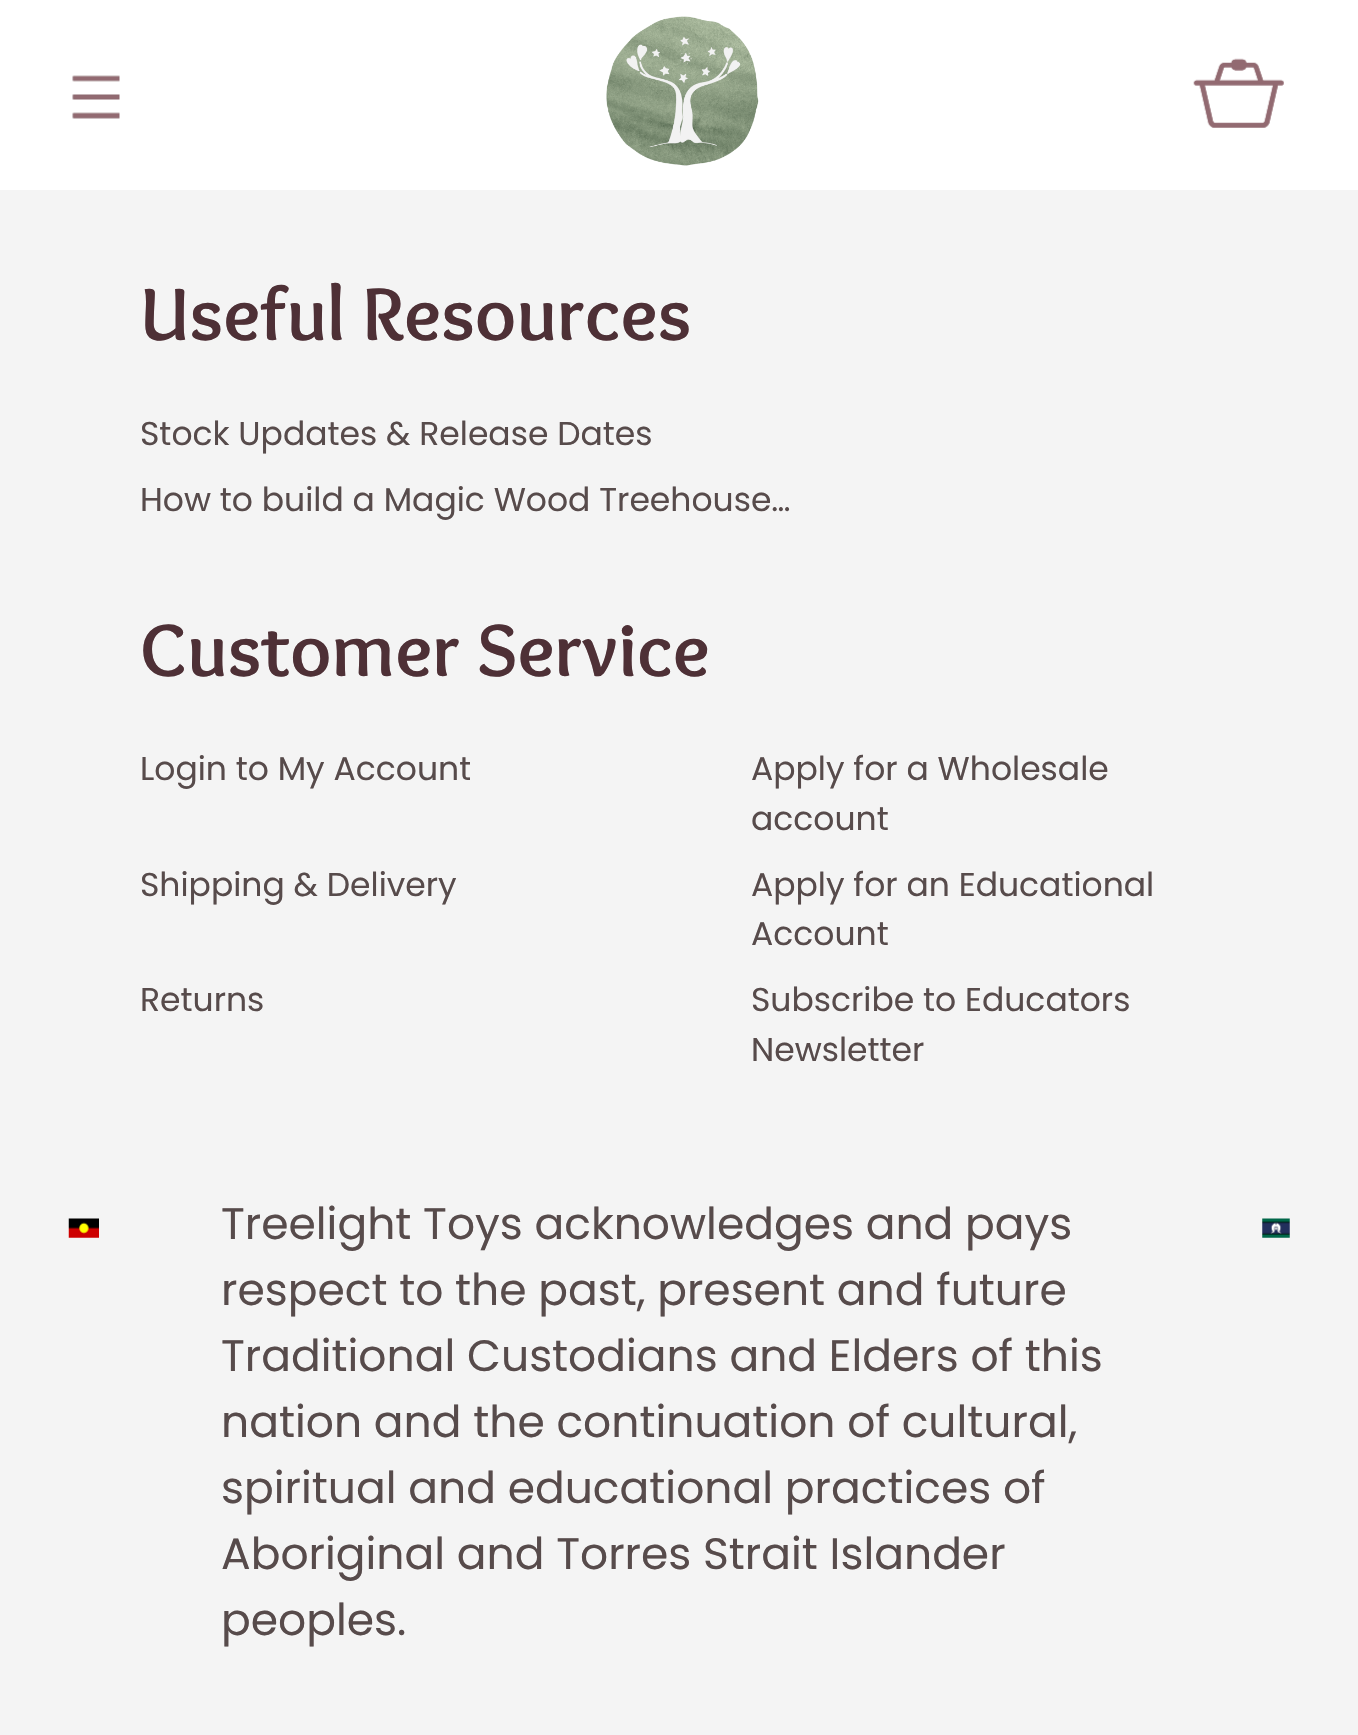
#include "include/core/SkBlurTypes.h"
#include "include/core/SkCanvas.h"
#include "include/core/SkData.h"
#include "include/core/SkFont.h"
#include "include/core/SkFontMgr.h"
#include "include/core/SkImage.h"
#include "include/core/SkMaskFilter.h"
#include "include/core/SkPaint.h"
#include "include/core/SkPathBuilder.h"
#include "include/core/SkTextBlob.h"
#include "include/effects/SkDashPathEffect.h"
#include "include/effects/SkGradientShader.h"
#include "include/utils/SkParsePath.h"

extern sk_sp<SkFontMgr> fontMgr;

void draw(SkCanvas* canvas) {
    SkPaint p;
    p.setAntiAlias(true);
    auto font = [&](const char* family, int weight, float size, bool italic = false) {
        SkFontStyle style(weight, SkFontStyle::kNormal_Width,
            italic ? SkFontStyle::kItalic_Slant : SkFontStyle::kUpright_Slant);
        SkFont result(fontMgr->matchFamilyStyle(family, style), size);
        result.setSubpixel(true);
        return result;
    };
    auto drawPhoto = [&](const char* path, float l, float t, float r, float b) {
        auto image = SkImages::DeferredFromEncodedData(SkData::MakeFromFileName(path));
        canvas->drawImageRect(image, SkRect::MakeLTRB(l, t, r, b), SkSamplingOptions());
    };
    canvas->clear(0xFFF4F4F4);
    p.setColor(0xFFFFFFFF);
    canvas->drawRect(SkRect::MakeLTRB(0, 0, 1358, 190), p);
    drawPhoto("media/1.png", 72, 75, 120, 119);
    drawPhoto("media/2.png", 606, 16, 759, 166);
    drawPhoto("media/3.png", 1193, 58, 1284, 128);
    auto font1 = font("Overlock", 700, 77);
    p.setColor(0xFF4E3036);
    canvas->drawString("Useful Resources", 140, 340, font1, p);
    auto font2 = font("Poppins", 400, 33);
    p.setColor(0xFF574B4B);
    canvas->drawString("Stock Updates & Release Dates", 140, 445, font2, p);
    canvas->drawString("How to build a Magic Wood Treehouse…", 140, 511, font2, p);
    p.setColor(0xFF4E3036);
    canvas->drawString("Customer Service", 140, 676, font1, p);
    canvas->save();
    canvas->clipRect(SkRect::MakeLTRB(140, 740, 470, 800));
    p.setColor(0xFF574B4B);
    canvas->drawString("Login to My Account", 140, 780, font2, p);
    canvas->restore();
    {
        const struct { const char* s; float x, y; } items[] = {
            {"Apply for a Wholesale", 751, 780},
            {"account", 751, 830},
            {"Shipping & Delivery", 140, 896},
            {"Apply for an Educational", 751, 896},
            {"Account", 751, 945},
            {"Returns", 140, 1011},
            {"Subscribe to Educators", 751, 1011},
            {"Newsletter", 751, 1061},
        };
        for (auto [s, x, y] : items) {
            canvas->drawString(s, x, y, font2, p);
        }
    }
    drawPhoto("media/4.png", 68, 1218, 99, 1238);
    auto font3 = font("Poppins", 400, 44);
    {
        const struct { const char* s; float x, y; } items[] = {
            {"Treelight Toys acknowledges and pays", 221, 1239},
            {"respect to the past, present and future", 221, 1305},
            {"Traditional Custodians and Elders of this", 221, 1371},
            {"nation and the continuation of cultural,", 221, 1437},
            {"spiritual and educational practices of", 221, 1503},
            {"Aboriginal and Torres Strait Islander", 221, 1569},
            {"peoples.", 221, 1635},
        };
        for (auto [s, x, y] : items) {
            canvas->drawString(s, x, y, font3, p);
        }
    }
    drawPhoto("media/5.png", 1262, 1218, 1290, 1238);
}
